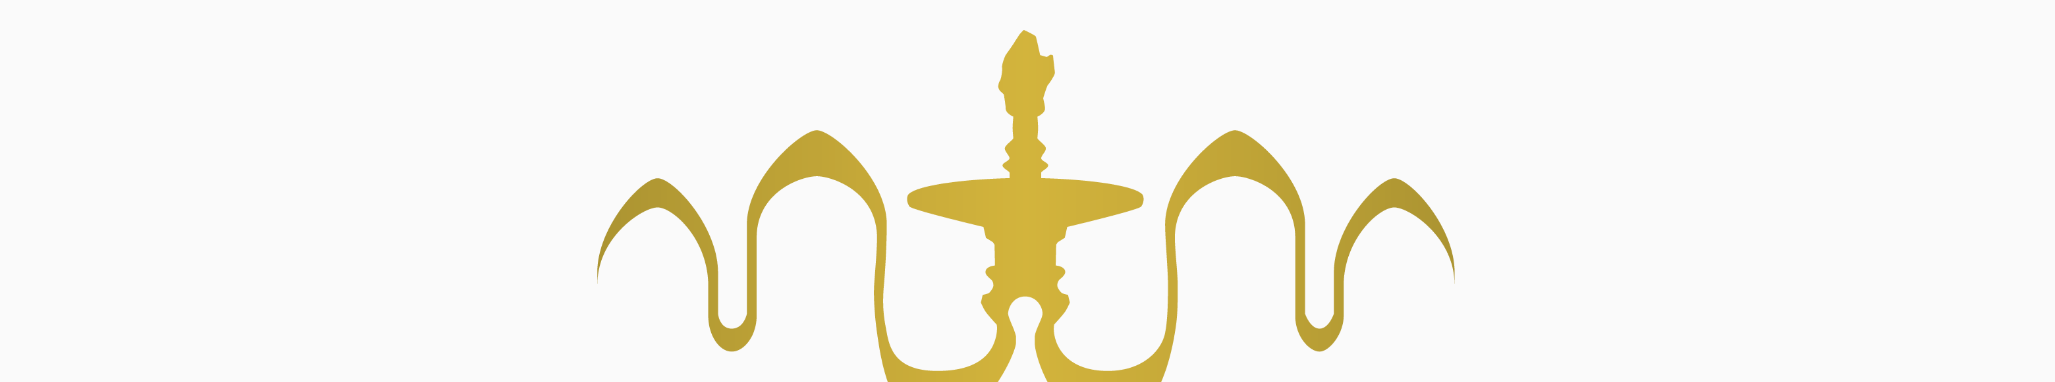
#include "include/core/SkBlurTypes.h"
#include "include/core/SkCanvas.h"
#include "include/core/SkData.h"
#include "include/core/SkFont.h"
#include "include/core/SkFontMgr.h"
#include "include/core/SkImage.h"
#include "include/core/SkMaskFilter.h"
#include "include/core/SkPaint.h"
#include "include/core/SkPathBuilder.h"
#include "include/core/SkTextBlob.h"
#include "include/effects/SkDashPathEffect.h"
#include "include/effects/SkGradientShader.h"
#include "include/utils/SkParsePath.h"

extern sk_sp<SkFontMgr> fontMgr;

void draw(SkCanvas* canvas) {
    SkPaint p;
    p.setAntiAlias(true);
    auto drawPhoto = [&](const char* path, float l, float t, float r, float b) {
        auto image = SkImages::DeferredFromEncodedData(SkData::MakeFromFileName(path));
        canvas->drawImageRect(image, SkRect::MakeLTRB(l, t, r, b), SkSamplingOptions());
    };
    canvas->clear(0xFFFAFAFA);
    drawPhoto("media/1.png", 597, 30, 1455, 382);
}
